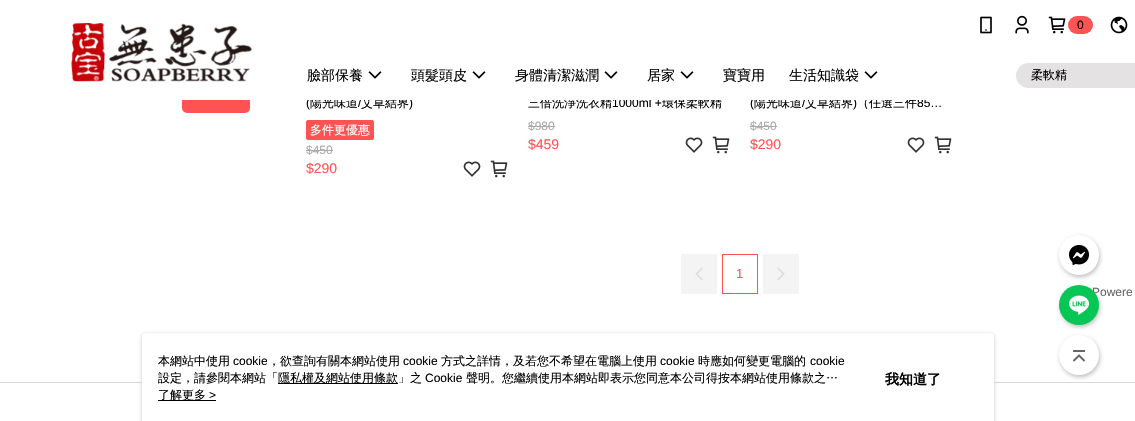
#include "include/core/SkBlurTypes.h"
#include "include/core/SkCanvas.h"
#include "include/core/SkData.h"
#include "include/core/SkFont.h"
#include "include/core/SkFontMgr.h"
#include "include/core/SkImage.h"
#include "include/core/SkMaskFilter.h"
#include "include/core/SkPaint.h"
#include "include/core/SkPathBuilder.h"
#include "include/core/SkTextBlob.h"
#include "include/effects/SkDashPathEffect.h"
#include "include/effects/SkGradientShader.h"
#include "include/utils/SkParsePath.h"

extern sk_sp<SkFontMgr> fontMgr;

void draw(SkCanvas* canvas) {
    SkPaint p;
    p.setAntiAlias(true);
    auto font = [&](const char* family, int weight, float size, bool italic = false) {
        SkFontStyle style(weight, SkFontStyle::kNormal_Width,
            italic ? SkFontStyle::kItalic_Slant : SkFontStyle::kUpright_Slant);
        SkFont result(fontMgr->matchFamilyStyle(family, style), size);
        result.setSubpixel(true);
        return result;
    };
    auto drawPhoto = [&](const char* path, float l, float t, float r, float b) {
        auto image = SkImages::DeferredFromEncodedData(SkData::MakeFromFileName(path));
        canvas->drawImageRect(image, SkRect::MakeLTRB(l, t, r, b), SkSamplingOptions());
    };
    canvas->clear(0xFFFFFFFF);
    p.setColor(0xFFFF5353);
    canvas->drawRoundRect(SkRect::MakeLTRB(182, 85, 250, 113), 5, 5, p);
    auto font1 = font("Liberation Sans", 400, 12);
    p.setColor(0xFF000000);
    canvas->drawString("(", 306, 107, font1, p);
    auto font2 = font("WenQuanYi Zen Hei", 500, 12);
    canvas->drawString("陽光味道", 310, 107, font2, p);
    canvas->drawString("/", 358, 107, font1, p);
    canvas->drawString("艾草結界", 361, 107, font2, p);
    canvas->drawString(")", 409, 107, font1, p);
    canvas->drawString("三倍洗淨洗衣精", 528, 107, font2, p);
    canvas->drawString("1000ml +", 612, 107, font1, p);
    canvas->drawString("環保柔軟精", 662, 107, font2, p);
    canvas->drawString("(", 750, 107, font1, p);
    canvas->drawString("陽光味道", 754, 107, font2, p);
    canvas->drawString("/", 802, 107, font1, p);
    canvas->drawString("艾草結界", 805, 107, font2, p);
    canvas->drawString(")", 853, 107, font1, p);
    canvas->drawString("（任選三件", 857, 107, font2, p);
    canvas->drawString("85…", 917, 107, font1, p);
    p.setColor(0xFFFFFFFF);
    canvas->drawRect(SkRect::MakeLTRB(182, 85, 930, 100), p);
    drawPhoto("media/1.png", 71, 23, 252, 82);
    drawPhoto("media/2.png", 980, 16, 992, 34);
    drawPhoto("media/3.png", 1015, 15, 1029, 34);
    drawPhoto("media/4.png", 1048, 16, 1066, 34);
    p.setColor(0xFFFF5353);
    canvas->drawRoundRect(SkRect::MakeLTRB(1068, 16, 1093, 34), 9, 9, p);
    p.setColor(0xFF000000);
    canvas->drawString("0", 1077, 29, font1, p);
    drawPhoto("media/5.png", 1110, 16, 1128, 34);
    auto font3 = font("WenQuanYi Zen Hei", 500, 14);
    canvas->drawString("臉部保養", 307, 80, font3, p);
    drawPhoto("media/6.png", 368, 71, 382, 79);
    canvas->drawString("頭髮頭皮", 411, 80, font3, p);
    drawPhoto("media/6.png", 472, 71, 486, 79);
    canvas->drawString("身體清潔滋潤", 515, 80, font3, p);
    drawPhoto("media/6.png", 604, 71, 618, 79);
    canvas->drawString("居家", 647, 80, font3, p);
    drawPhoto("media/6.png", 680, 71, 694, 79);
    canvas->drawString("寶寶用", 723, 80, font3, p);
    canvas->drawString("生活知識袋", 789, 80, font3, p);
    drawPhoto("media/6.png", 864, 71, 878, 79);
    p.setColor(0xFFE4E2E2);
    canvas->drawRoundRect(SkRect::MakeLTRB(1016, 63, 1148, 88), 12.5f, 12.5f, p);
    p.setColor(0xFF000000);
    canvas->drawString("柔軟精", 1031, 79, font2, p);
    p.setColor(0x40000000);
    p.setMaskFilter(SkMaskFilter::MakeBlur(kNormal_SkBlurStyle, 2));
    canvas->drawRoundRect(SkRect::MakeLTRB(1060, 237, 1100, 277), 20, 20, p);
    p.setMaskFilter(nullptr);
    p.setColor(0xFFFFFFFF);
    canvas->drawCircle(1079, 255, 20, p);
    drawPhoto("media/7.png", 1069, 245, 1089, 265);
    p.setColor(0x40000000);
    p.setMaskFilter(SkMaskFilter::MakeBlur(kNormal_SkBlurStyle, 2));
    canvas->drawRoundRect(SkRect::MakeLTRB(1060, 287, 1100, 327), 20, 20, p);
    p.setMaskFilter(nullptr);
    p.setColor(0xFF666666);
    canvas->drawString("Powere", 1092, 296, font1, p);
    p.setColor(0xFF06C755);
    canvas->drawCircle(1079, 305, 20, p);
    drawPhoto("media/8.png", 1069, 295, 1089, 315);
    p.setColor(0xFFDADADA);
    canvas->drawRect(SkRect::MakeLTRB(0, 382, 1135, 383), p);
    p.setColor(0x40000000);
    p.setMaskFilter(SkMaskFilter::MakeBlur(kNormal_SkBlurStyle, 2));
    canvas->drawRoundRect(SkRect::MakeLTRB(1060, 337, 1100, 377), 20, 20, p);
    p.setMaskFilter(nullptr);
    p.setColor(0xFFFFFFFF);
    canvas->drawCircle(1079, 355, 20, p);
    drawPhoto("media/9.png", 1072, 350, 1086, 362);
    p.setColor(0xFFFF5353);
    canvas->drawRoundRect(SkRect::MakeLTRB(306, 120, 374, 140), 2, 2, p);
    p.setColor(0xFFFFFFFF);
    canvas->drawString("多件更優惠", 310, 134, font2, p);
    p.setColor(0xFFAAAAAA);
    canvas->drawString("$450", 306, 154, font1, p);
    canvas->drawRect(SkRect::MakeLTRB(306, 150, 333, 151), p);
    auto font4 = font("Liberation Sans", 400, 14);
    p.setColor(0xFFFF5353);
    canvas->drawString("$290", 306, 173, font4, p);
    drawPhoto("media/10.png", 463, 161, 481, 177);
    drawPhoto("media/11.png", 490, 160, 508, 178);
    p.setColor(0xFFAAAAAA);
    canvas->drawString("$980", 528, 130, font1, p);
    canvas->drawRect(SkRect::MakeLTRB(528, 126, 555, 127), p);
    p.setColor(0xFFFF5353);
    canvas->drawString("$459", 528, 149, font4, p);
    drawPhoto("media/10.png", 685, 137, 703, 153);
    drawPhoto("media/11.png", 712, 136, 730, 154);
    p.setColor(0xFFAAAAAA);
    canvas->drawString("$450", 750, 130, font1, p);
    canvas->drawRect(SkRect::MakeLTRB(750, 126, 777, 127), p);
    p.setColor(0xFFFF5353);
    canvas->drawString("$290", 750, 149, font4, p);
    drawPhoto("media/10.png", 907, 137, 925, 153);
    drawPhoto("media/11.png", 934, 136, 952, 154);
    p.setColor(0xFFF4F4F4);
    canvas->drawRect(SkRect::MakeLTRB(681, 254, 717, 294), p);
    drawPhoto("media/12.png", 695, 267, 703, 281);
    p.setStyle(SkPaint::kStroke_Style);
    p.setStrokeWidth(1);
    p.setColor(0xFFFF5353);
    canvas->drawRect(SkRect::MakeLTRB(722.5f, 254.5f, 757.5f, 293.5f), p);
    auto font5 = font("Liberation Sans", 400, 13);
    p.setStyle(SkPaint::kFill_Style);
    canvas->drawString("1", 736, 278, font5, p);
    p.setColor(0xFFF4F4F4);
    canvas->drawRect(SkRect::MakeLTRB(763, 254, 799, 294), p);
    drawPhoto("media/13.png", 777, 267, 785, 281);
    p.setColor(0x80979797);
    p.setMaskFilter(SkMaskFilter::MakeBlur(kNormal_SkBlurStyle, 2));
    canvas->drawRoundRect(SkRect::MakeLTRB(142, 334, 994, 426), 4, 4, p);
    p.setMaskFilter(nullptr);
    p.setColor(0xFFFFFFFF);
    canvas->drawRoundRect(SkRect::MakeLTRB(142, 333, 994, 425), 4, 4, p);
    p.setColor(0xFF000000);
    canvas->drawString("本網站中使用", 158, 365, font2, p);
    canvas->drawString("cookie", 233, 365, font1, p);
    canvas->drawString("，欲查詢有關本網站使用", 268, 365, font2, p);
    canvas->drawString("cookie", 403, 365, font1, p);
    canvas->drawString("方式之詳情，及若您不希望在電腦上使用", 441, 365, font2, p);
    canvas->drawString("cookie", 660, 365, font1, p);
    canvas->drawString("時應如何變更電腦的", 698, 365, font2, p);
    canvas->drawString("cookie", 810, 365, font1, p);
    canvas->save();
    canvas->clipRect(SkRect::MakeLTRB(158, 353, 848, 387));
    canvas->drawString("設定，請參閱本網站「", 158, 382, font2, p);
    canvas->restore();
    canvas->drawRect(SkRect::MakeLTRB(278, 383, 398, 384), p);
    canvas->drawString("隱私權及網站使用條款」之", 278, 382, font2, p);
    canvas->drawString("Cookie", 425, 382, font1, p);
    canvas->drawString("聲明。您繼續使用本網站即表示您同意本公司得按本網站使用條款之…", 466, 382, font2, p);
    canvas->drawRect(SkRect::MakeLTRB(158, 400, 216, 401), p);
    canvas->drawString("了解更多", 158, 399, font2, p);
    canvas->drawString(">", 209, 399, font1, p);
    auto font6 = font("WenQuanYi Zen Hei", 700, 14);
    canvas->drawString("我知道了", 885, 384, font6, p);
}
